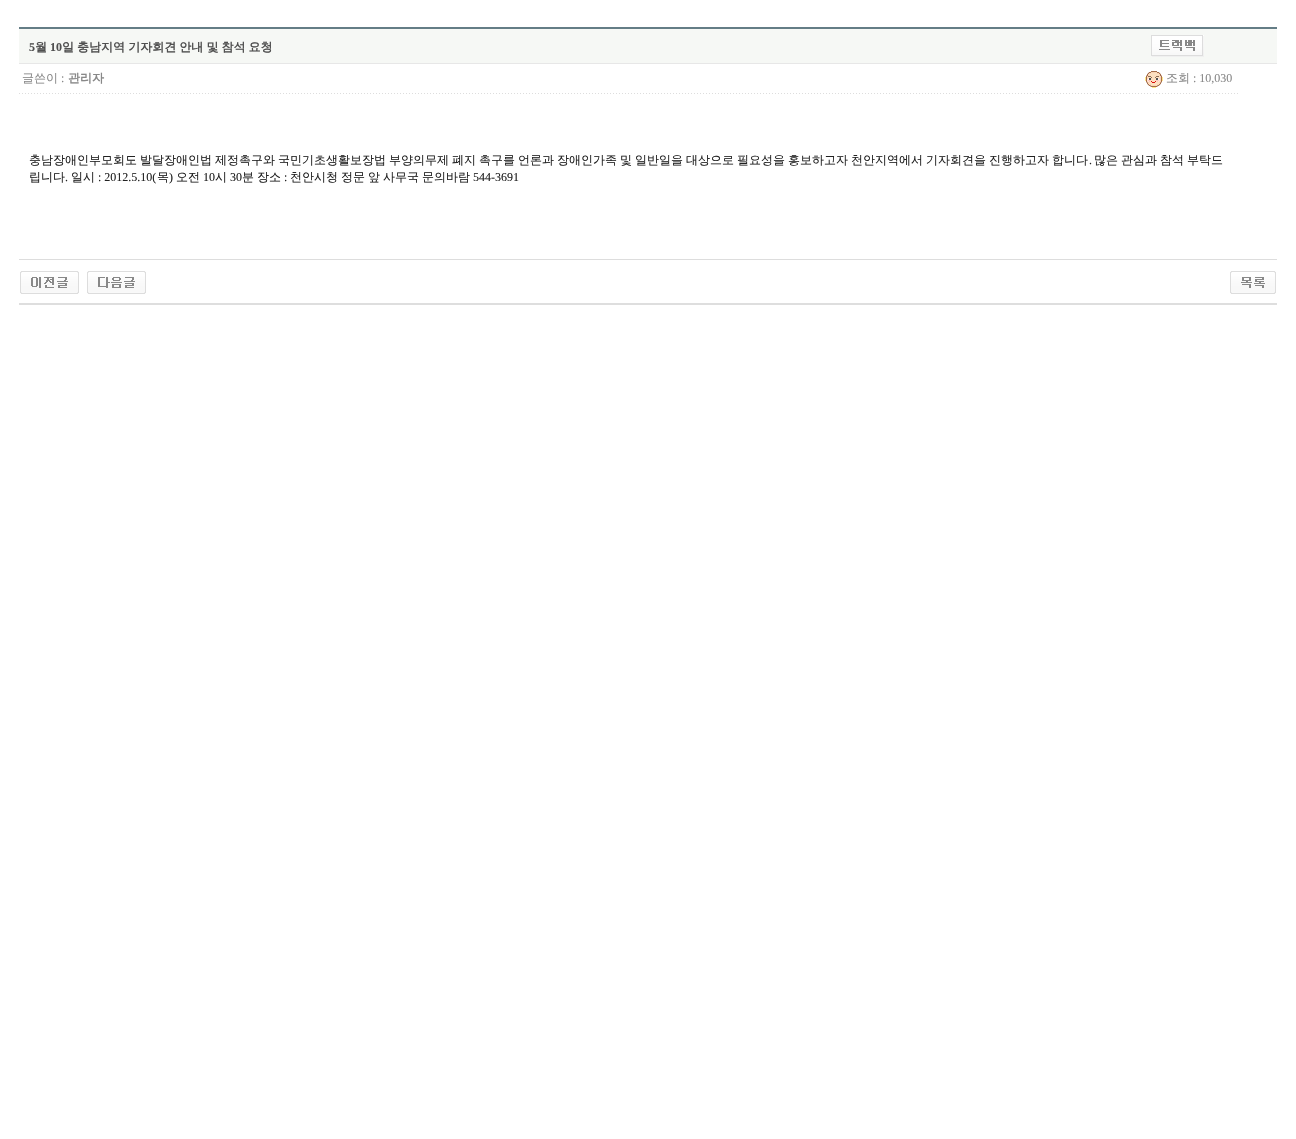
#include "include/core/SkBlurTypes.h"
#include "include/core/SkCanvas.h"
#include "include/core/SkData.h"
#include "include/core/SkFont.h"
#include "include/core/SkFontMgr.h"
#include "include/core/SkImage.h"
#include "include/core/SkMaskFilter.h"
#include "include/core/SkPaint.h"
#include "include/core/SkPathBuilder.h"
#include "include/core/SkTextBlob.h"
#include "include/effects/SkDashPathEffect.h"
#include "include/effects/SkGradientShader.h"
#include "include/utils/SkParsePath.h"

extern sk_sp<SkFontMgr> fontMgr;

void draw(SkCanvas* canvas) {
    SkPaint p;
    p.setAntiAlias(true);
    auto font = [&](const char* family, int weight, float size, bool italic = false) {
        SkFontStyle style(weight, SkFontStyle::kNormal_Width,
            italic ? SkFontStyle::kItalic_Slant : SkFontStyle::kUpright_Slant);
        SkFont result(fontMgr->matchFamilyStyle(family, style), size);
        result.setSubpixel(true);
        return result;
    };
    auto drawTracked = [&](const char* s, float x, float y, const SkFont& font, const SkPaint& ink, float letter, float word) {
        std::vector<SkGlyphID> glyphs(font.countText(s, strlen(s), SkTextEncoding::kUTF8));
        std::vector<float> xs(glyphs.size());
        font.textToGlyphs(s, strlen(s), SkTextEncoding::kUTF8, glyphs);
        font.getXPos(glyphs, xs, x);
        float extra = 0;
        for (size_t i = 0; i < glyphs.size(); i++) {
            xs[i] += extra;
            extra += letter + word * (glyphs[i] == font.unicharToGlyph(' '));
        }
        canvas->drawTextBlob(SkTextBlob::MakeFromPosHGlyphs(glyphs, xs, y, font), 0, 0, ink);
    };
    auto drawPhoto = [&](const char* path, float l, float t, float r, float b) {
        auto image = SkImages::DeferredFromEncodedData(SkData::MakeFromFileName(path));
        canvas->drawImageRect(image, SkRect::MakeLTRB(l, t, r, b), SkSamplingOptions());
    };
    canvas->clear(0xFFFFFFFF);
    {
        const struct { float l, t, r, b; SkColor color; } items[] = {
            {19, 29, 1277, 63, 0xFFF6F8F5},
            {19, 27, 1277, 29, 0xFF647D86},
            {19, 63, 1277, 64, 0xFFE7E7E7},
        };
        for (auto [l, t, r, b, color] : items) {
            p.setColor(color);
            canvas->drawRect(SkRect::MakeLTRB(l, t, r, b), p);
        }
    }
    auto font1 = font("Liberation Serif", 700, 12);
    p.setColor(0xFF505050);
    canvas->drawString("5", 29, 51, font1, p);
    auto font2 = font("WenQuanYi Zen Hei", 700, 12);
    canvas->drawString("월", 35, 51, font2, p);
    canvas->drawString("10", 50, 51, font1, p);
    drawTracked("일 충남지역 기자회견 안내 및 참석 요청", 62, 51, font2, p, 0, -0.5f);
    drawPhoto("media/1.png", 1151, 35, 1204, 57);
    drawPhoto("media/2.png", 19, 93, 1238, 94);
    auto font3 = font("WenQuanYi Zen Hei", 500, 12);
    p.setColor(0xFF888888);
    canvas->drawString("글쓴이", 22, 82, font3, p);
    auto font4 = font("Liberation Serif", 400, 12);
    canvas->drawString(":", 61, 82, font4, p);
    canvas->drawString("관리자", 68, 82, font2, p);
    drawPhoto("media/3.png", 1145, 71, 1163, 88);
    canvas->drawString("조회", 1166, 82, font3, p);
    canvas->drawString(": 10,030", 1193, 82, font4, p);
    p.setColor(0xFF222222);
    drawTracked("충남장애인부모회도 발달장애인법 제정촉구와 국민기초생활보장법 부양의무제 폐지 촉구를 언론과 장애인가족 및 일반일을 대상으로 필요성을 홍보하고자 천안지역에서 기자회견을 진행하고자 합니다", 29, 164, font3, p, 0, -0.6f);
    canvas->drawString(".", 1089, 164, font4, p);
    drawTracked("많은 관심과 참석 부탁드", 1094, 164, font3, p, 0, -0.6f);
    canvas->drawString("립니다", 29, 181, font3, p);
    canvas->drawString(".", 65, 181, font4, p);
    canvas->drawString("일시", 71, 181, font3, p);
    canvas->drawString(": 2012.5.10(", 98, 181, font4, p);
    canvas->drawString("목", 157, 181, font3, p);
    canvas->drawString(")", 169, 181, font4, p);
    canvas->drawString("오전", 176, 181, font3, p);
    canvas->drawString("10", 203, 181, font4, p);
    canvas->drawString("시", 215, 181, font3, p);
    canvas->drawString("30", 230, 181, font4, p);
    canvas->drawString("분", 242, 181, font3, p);
    canvas->drawString("장소", 257, 181, font3, p);
    canvas->drawString(":", 284, 181, font4, p);
    {
        const struct { const char* s; float x, y; } items[] = {
            {"천안시청", 290, 181},
            {"정문", 341, 181},
            {"앞", 368, 181},
            {"사무국", 383, 181},
            {"문의바람", 422, 181},
        };
        for (auto [s, x, y] : items) {
            canvas->drawString(s, x, y, font3, p);
        }
    }
    canvas->drawString("544-3691", 473, 181, font4, p);
    p.setColor(0xFFDDDDDD);
    canvas->drawRect(SkRect::MakeLTRB(19, 259, 1277, 260), p);
    drawPhoto("media/4.png", 20, 271, 79, 294);
    drawPhoto("media/5.png", 87, 271, 146, 294);
    drawPhoto("media/6.png", 1230, 271, 1276, 294);
    p.setColor(0xFFDEDEDE);
    canvas->drawRect(SkRect::MakeLTRB(19, 303, 1277, 305), p);
}
